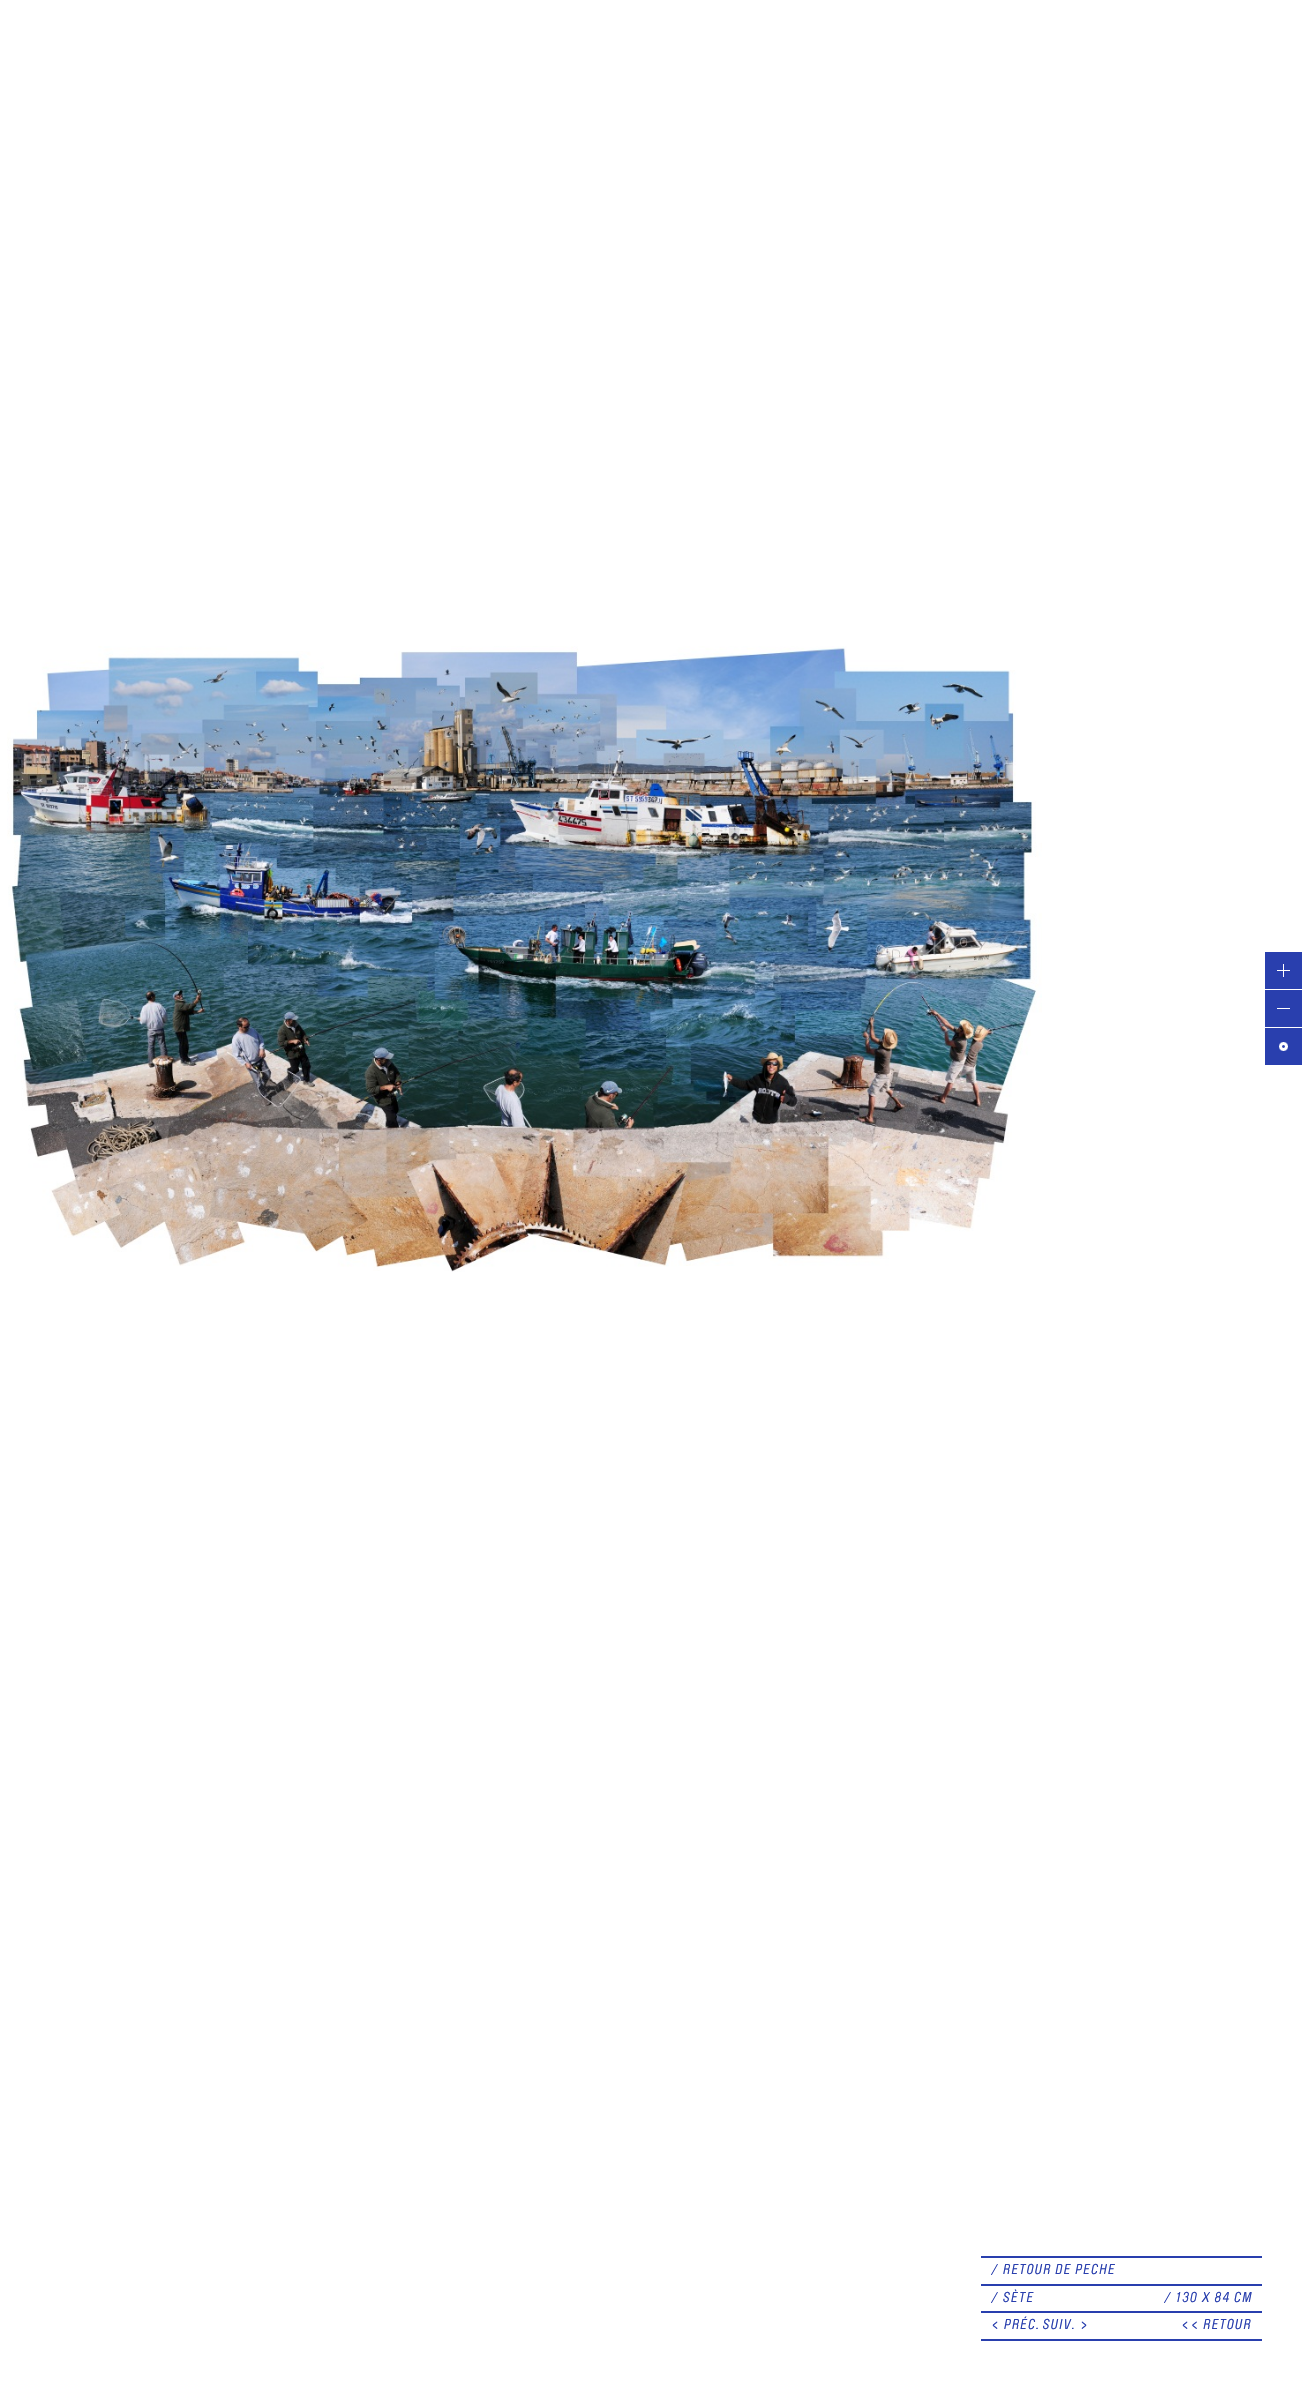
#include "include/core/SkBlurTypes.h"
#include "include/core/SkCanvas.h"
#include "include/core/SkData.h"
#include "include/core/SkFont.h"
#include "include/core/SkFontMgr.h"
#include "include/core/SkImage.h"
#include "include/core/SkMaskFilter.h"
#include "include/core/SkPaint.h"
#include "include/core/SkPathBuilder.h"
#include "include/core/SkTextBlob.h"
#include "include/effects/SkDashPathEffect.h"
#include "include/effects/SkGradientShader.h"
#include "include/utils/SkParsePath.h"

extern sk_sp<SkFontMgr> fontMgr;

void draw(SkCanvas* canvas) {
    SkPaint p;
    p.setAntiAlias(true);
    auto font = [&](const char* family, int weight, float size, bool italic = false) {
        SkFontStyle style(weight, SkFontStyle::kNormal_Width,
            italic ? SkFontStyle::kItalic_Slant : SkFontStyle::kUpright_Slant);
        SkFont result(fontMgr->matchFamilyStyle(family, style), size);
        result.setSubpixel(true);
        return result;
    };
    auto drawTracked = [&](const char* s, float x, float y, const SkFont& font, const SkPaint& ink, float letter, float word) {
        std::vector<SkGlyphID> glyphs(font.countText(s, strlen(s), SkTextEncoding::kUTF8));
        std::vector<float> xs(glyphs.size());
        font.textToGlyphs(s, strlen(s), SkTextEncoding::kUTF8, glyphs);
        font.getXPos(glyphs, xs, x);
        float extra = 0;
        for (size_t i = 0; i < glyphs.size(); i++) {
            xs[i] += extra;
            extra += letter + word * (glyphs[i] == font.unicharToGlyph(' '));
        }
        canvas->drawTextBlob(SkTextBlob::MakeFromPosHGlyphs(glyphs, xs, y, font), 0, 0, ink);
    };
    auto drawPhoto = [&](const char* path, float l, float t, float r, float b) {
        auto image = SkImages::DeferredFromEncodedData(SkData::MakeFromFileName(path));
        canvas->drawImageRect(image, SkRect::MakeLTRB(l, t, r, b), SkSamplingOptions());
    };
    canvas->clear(0xFFFFFFFF);
    drawPhoto("media/15.png", 904, 1070, 1012, 1232);
    drawPhoto("media/10.png", 904, 842, 1042, 1071);
    drawPhoto("media/5.png", 904, 670, 1036, 845);
    drawPhoto("media/14.png", 678, 1068, 905, 1266);
    drawPhoto("media/9.png", 678, 842, 905, 1071);
    drawPhoto("media/4.png", 678, 646, 905, 845);
    drawPhoto("media/13.png", 450, 1068, 679, 1272);
    drawPhoto("media/8.png", 452, 842, 679, 1071);
    drawPhoto("media/3.png", 450, 646, 679, 845);
    drawPhoto("media/12.png", 225, 1068, 453, 1271);
    drawPhoto("media/7.png", 226, 842, 453, 1071);
    drawPhoto("media/2.png", 226, 651, 453, 845);
    drawPhoto("media/11.png", 21, 1068, 227, 1266);
    drawPhoto("media/6.png", 8, 842, 227, 1071);
    drawPhoto("media/1.png", 7, 646, 227, 845);
    drawPhoto("media/16.png", 1265, 952, 1302, 989);
    drawPhoto("media/17.png", 1265, 990, 1302, 1027);
    drawPhoto("media/18.png", 1265, 1028, 1302, 1065);
    p.setColor(0xFF293FAE);
    canvas->drawRect(SkRect::MakeLTRB(981, 2339, 1262, 2341), p);
    canvas->drawRect(SkRect::MakeLTRB(981, 2256, 1262, 2258), p);
    auto font1 = font("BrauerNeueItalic", 400, 14, true);
    drawTracked("/ RETOUR DE PECHE", 991, 2274, font1, p, 1.4f, 0);
    canvas->drawRect(SkRect::MakeLTRB(981, 2284, 1262, 2286), p);
    drawTracked("/ SÈTE", 991, 2302, font1, p, 1.4f, 0);
    drawTracked("/ 130 X 84 CM", 1164, 2302, font1, p, 1.4f, 0);
    canvas->drawRect(SkRect::MakeLTRB(981, 2311, 1262, 2313), p);
    {
        const struct { const char* s; float x, y; } items[] = {
            {"< PRÉC.", 991, 2329},
            {"SUIV. >", 1043, 2329},
            {"<< RETOUR", 1181, 2329},
        };
        for (auto [s, x, y] : items) {
            drawTracked(s, x, y, font1, p, 1.4f, 0);
        }
    }
}
